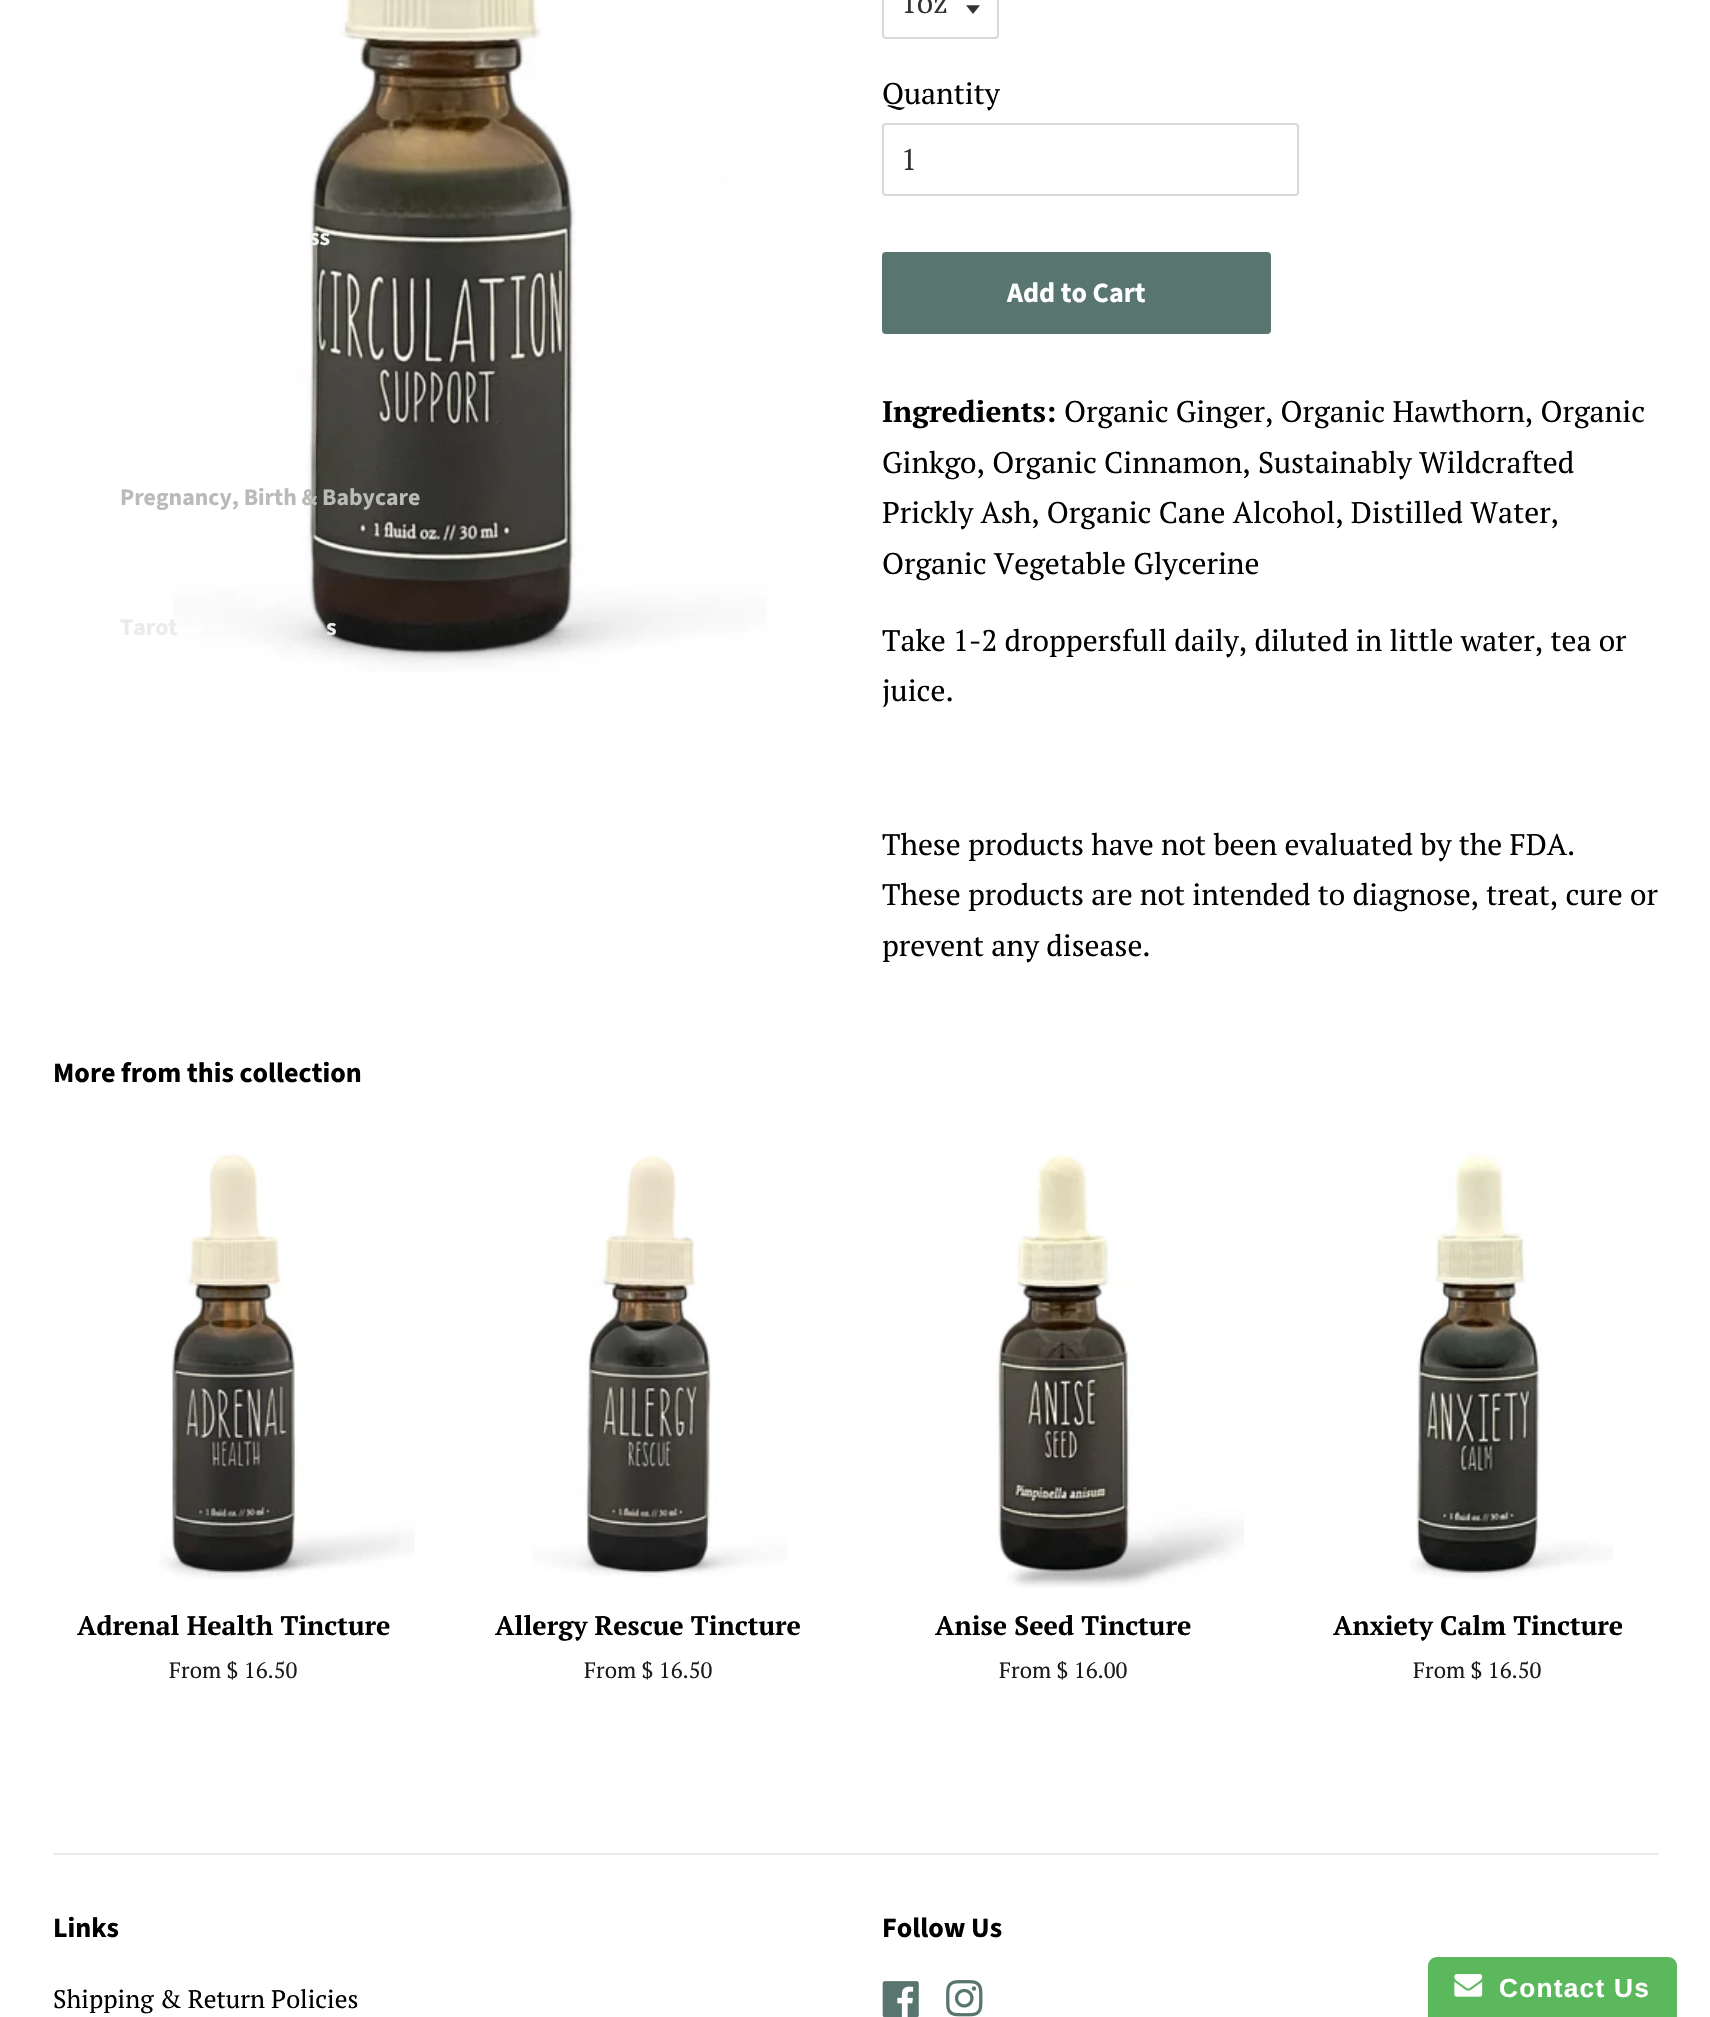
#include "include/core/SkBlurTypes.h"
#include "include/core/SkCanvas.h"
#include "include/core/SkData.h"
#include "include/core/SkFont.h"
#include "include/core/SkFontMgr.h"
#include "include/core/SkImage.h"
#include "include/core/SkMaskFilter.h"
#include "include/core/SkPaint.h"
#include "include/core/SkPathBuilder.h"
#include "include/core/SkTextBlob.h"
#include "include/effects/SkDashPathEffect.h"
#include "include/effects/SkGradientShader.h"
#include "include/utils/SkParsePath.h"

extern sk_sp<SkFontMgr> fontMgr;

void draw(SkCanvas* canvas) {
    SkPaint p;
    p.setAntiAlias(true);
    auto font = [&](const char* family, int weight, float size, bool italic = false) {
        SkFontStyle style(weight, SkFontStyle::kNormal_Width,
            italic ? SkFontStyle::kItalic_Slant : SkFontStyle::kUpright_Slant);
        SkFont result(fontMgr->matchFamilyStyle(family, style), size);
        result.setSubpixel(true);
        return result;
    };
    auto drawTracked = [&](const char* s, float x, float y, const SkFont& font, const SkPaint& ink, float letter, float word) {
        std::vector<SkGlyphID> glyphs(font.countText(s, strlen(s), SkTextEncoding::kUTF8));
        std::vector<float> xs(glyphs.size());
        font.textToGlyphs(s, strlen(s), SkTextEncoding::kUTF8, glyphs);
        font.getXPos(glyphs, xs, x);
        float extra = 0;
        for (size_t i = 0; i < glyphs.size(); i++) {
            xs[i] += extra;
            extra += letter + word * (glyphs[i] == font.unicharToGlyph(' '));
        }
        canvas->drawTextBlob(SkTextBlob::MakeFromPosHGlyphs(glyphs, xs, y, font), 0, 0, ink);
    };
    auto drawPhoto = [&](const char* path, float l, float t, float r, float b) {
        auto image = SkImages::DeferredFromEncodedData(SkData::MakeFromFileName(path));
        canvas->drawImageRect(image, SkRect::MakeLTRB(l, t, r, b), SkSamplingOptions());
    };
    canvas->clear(0xFFFFFFFF);
    drawPhoto("media/1.png", 173, 0, 767, 672);
    drawPhoto("media/2.png", 966, 5, 980, 14);
    p.setStyle(SkPaint::kStroke_Style);
    p.setStrokeWidth(2);
    p.setColor(0xFFD9D9D9);
    canvas->drawRoundRect(SkRect::MakeLTRB(883, -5, 998, 38), 3, 3, p);
    auto font1 = font("PT Serif", 400, 29.75f);
    p.setStyle(SkPaint::kFill_Style);
    p.setColor(0xFF333333);
    canvas->drawString("1oz", 901, 13, font1, p);
    p.setColor(0xFF000000);
    canvas->drawString("Quantity", 882, 104, font1, p);
    p.setStyle(SkPaint::kStroke_Style);
    p.setColor(0xFFD9D9D9);
    canvas->drawRoundRect(SkRect::MakeLTRB(883, 124, 1298, 195), 3, 3, p);
    p.setStyle(SkPaint::kFill_Style);
    p.setColor(0xFF333333);
    canvas->drawString("1", 901, 170, font1, p);
    p.setColor(0xFF59756F);
    canvas->drawRoundRect(SkRect::MakeLTRB(882, 252, 1271, 334), 4, 4, p);
    auto font2 = font("Source Sans Pro", 700, 28);
    p.setColor(0xFFFFFFFF);
    canvas->drawString("Add to Cart", 1007, 302, font2, p);
    auto font3 = font("PT Serif", 700, 29.75f);
    p.setColor(0xFF000000);
    canvas->drawString("Ingredients:", 882, 422, font3, p);
    {
        const struct { const char* s; float x, y; } items[] = {
            {"Organic Ginger, Organic Hawthorn, Organic", 1064, 422},
            {"Ginkgo, Organic Cinnamon, Sustainably Wildcrafted", 882, 473},
            {"Prickly Ash, Organic Cane Alcohol, Distilled Water,", 882, 523},
            {"Organic Vegetable Glycerine", 882, 574},
            {"Take 1-2 droppersfull daily, diluted in little water, tea or", 882, 651},
            {"juice.", 882, 701},
            {"These products have not been evaluated by the FDA.", 882, 855},
            {"These products are not intended to diagnose, treat, cure or", 882, 905},
            {"prevent any disease.", 882, 956},
        };
        for (auto [s, x, y] : items) {
            canvas->drawString(s, x, y, font1, p);
        }
    }
    canvas->drawString("More from this collection", 53, 1082, font2, p);
    drawPhoto("media/3.png", 159, 1153, 415, 1579);
    auto font4 = font("PT Serif", 700, 26.75f);
    canvas->drawString("Adrenal Health Tincture", 77, 1635, font4, p);
    auto font5 = font("PT Serif", 400, 22.25f);
    p.setColor(0xFF1A1A1A);
    canvas->drawString("From $ 16.50", 169, 1678, font5, p);
    drawPhoto("media/4.png", 532, 1155, 788, 1578);
    p.setColor(0xFF000000);
    canvas->drawString("Allergy Rescue Tincture", 495, 1635, font4, p);
    p.setColor(0xFF1A1A1A);
    canvas->drawString("From $ 16.50", 584, 1678, font5, p);
    drawPhoto("media/5.png", 995, 1154, 1244, 1588);
    p.setColor(0xFF000000);
    canvas->drawString("Anise Seed Tincture", 935, 1635, font4, p);
    p.setColor(0xFF1A1A1A);
    canvas->drawString("From $ 16.00", 999, 1678, font5, p);
    drawPhoto("media/6.png", 1409, 1153, 1613, 1579);
    p.setColor(0xFF000000);
    canvas->drawString("Anxiety Calm Tincture", 1333, 1635, font4, p);
    p.setColor(0xFF1A1A1A);
    canvas->drawString("From $ 16.50", 1413, 1678, font5, p);
    p.setColor(0xFFEFEBEB);
    canvas->drawRect(SkRect::MakeLTRB(53, 1853, 1659, 1855), p);
    auto font6 = font("Source Sans Pro", 700, 23.75f);
    p.setColor(0xFFF1F1F0);
    canvas->drawString("ss", 309, 245, font6, p);
    p.setColor(0xFFBABAB8);
    canvas->drawString("Pregnancy, Birth & Babycare", 120, 505, font6, p);
    p.setColor(0xFFEBEBEB);
    canvas->drawString("Tarot", 120, 635, font6, p);
    canvas->drawString("s", 326, 635, font6, p);
    p.setColor(0xFF000000);
    canvas->drawString("Links", 53, 1937, font2, p);
    auto font7 = font("PT Serif", 400, 25.25f);
    canvas->drawString("Shipping & Return Policies", 53, 2008, font7, p);
    canvas->drawString("Follow Us", 882, 1937, font2, p);
    drawPhoto("media/7.png", 882, 1981, 919, 2017);
    drawPhoto("media/8.png", 946, 1980, 983, 2017);
    p.setColor(0xFF5CB85C);
    canvas->drawPath(SkPathBuilder().moveTo(1437, 1957).lineTo(1668, 1957).cubicTo(1673, 1957, 1677, 1961, 1677, 1966).lineTo(1677, 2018).lineTo(1428, 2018).lineTo(1428, 1966).cubicTo(1428, 1961, 1432, 1957, 1437, 1957).close().detach(), p);
    drawPhoto("media/9.png", 1454, 1974, 1483, 1997);
    auto font8 = font("Liberation Sans", 700, 26.25f);
    p.setColor(0xFFFFFFFF);
    drawTracked("Contact Us", 1499, 1997, font8, p, 1.25f, 0);
}
